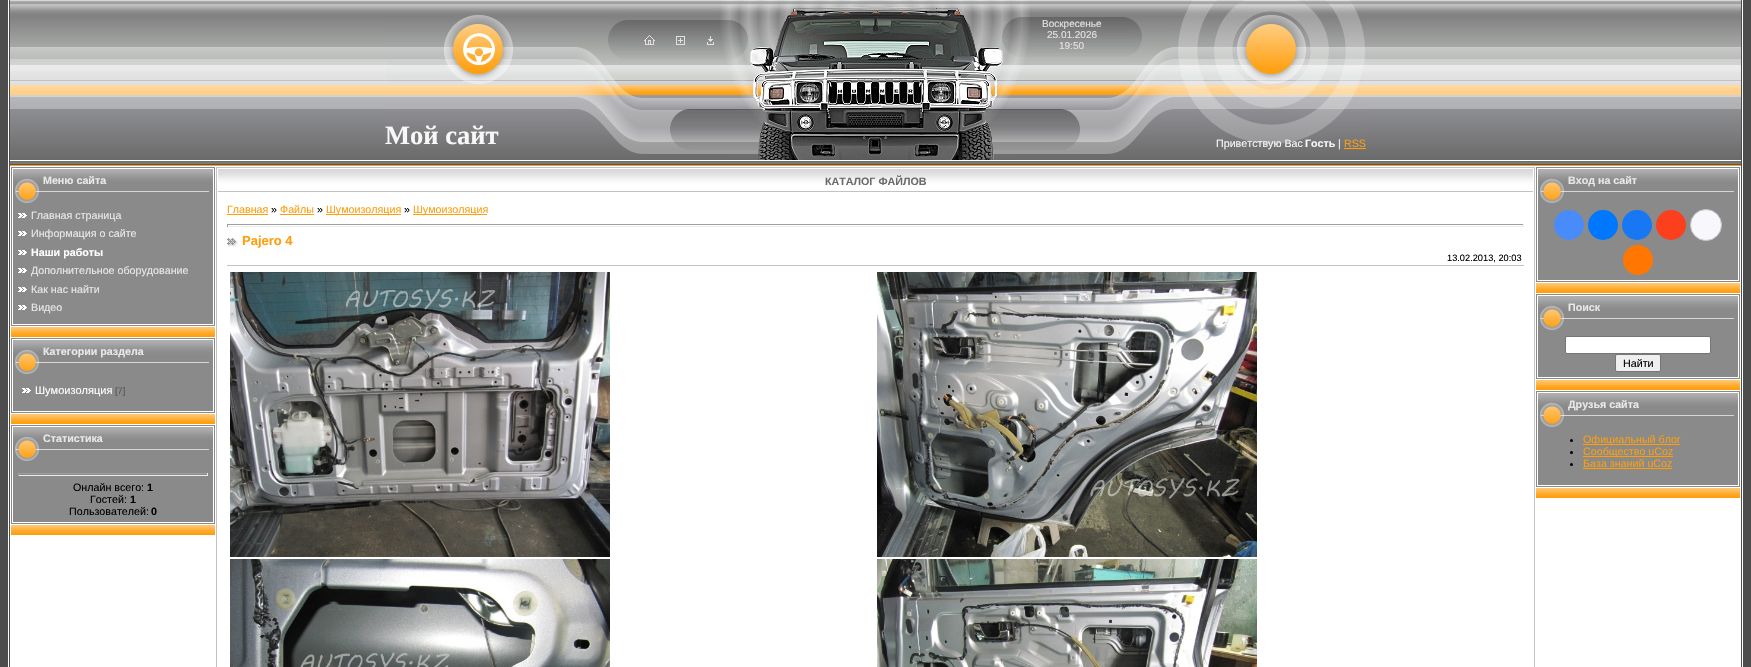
#include "include/core/SkBlurTypes.h"
#include "include/core/SkCanvas.h"
#include "include/core/SkData.h"
#include "include/core/SkFont.h"
#include "include/core/SkFontMgr.h"
#include "include/core/SkImage.h"
#include "include/core/SkMaskFilter.h"
#include "include/core/SkPaint.h"
#include "include/core/SkPathBuilder.h"
#include "include/core/SkTextBlob.h"
#include "include/effects/SkDashPathEffect.h"
#include "include/effects/SkGradientShader.h"
#include "include/utils/SkParsePath.h"

extern sk_sp<SkFontMgr> fontMgr;

void draw(SkCanvas* canvas) {
    SkPaint p;
    p.setAntiAlias(true);
    auto font = [&](const char* family, int weight, float size, bool italic = false) {
        SkFontStyle style(weight, SkFontStyle::kNormal_Width,
            italic ? SkFontStyle::kItalic_Slant : SkFontStyle::kUpright_Slant);
        SkFont result(fontMgr->matchFamilyStyle(family, style), size);
        result.setSubpixel(true);
        return result;
    };
    auto drawPhoto = [&](const char* path, float l, float t, float r, float b) {
        auto image = SkImages::DeferredFromEncodedData(SkData::MakeFromFileName(path));
        canvas->drawImageRect(image, SkRect::MakeLTRB(l, t, r, b), SkSamplingOptions());
    };
    canvas->clear(0xFFFFFFFF);
    drawPhoto("media/1.png", 0, 0, 10, 667);
    drawPhoto("media/2.png", 10, 0, 1741, 166);
    drawPhoto("media/3.png", 625, 0, 733, 154);
    drawPhoto("media/4.png", 644, 35, 655, 45);
    drawPhoto("media/5.png", 676, 36, 685, 45);
    drawPhoto("media/6.png", 707, 36, 714, 45);
    drawPhoto("media/7.png", 733, 0, 1018, 160);
    drawPhoto("media/8.png", 1018, 0, 1126, 154);
    auto font1 = font("Liberation Sans", 400, 10);
    p.setColor(0xFFE0E1E0);
    {
        const struct { const char* s; float x, y; } items[] = {
            {"Воскресенье", 1042, 27},
            {"25.01.2026", 1047, 38},
            {"19:50", 1059, 49},
        };
        for (auto [s, x, y] : items) {
            canvas->drawString(s, x, y, font1, p);
        }
    }
    drawPhoto("media/9.png", 385, 15, 625, 148);
    auto font2 = font("Liberation Serif", 700, 26.5f);
    p.setColor(0xFFF7F7F7);
    canvas->drawString("Мой сайт", 385, 144, font2, p);
    drawPhoto("media/10.png", 1126, 0, 1366, 148);
    auto font3 = font("Liberation Sans", 400, 10.7f);
    canvas->drawString("Приветствую Вас", 1216, 147, font3, p);
    auto font4 = font("Liberation Sans", 700, 10.7f);
    canvas->drawString("Гость", 1305, 147, font4, p);
    canvas->drawString("|", 1338, 147, font3, p);
    p.setColor(0xFFFF9E0C);
    canvas->drawString("RSS", 1344, 147, font3, p);
    canvas->drawRect(SkRect::MakeLTRB(1344, 148, 1366, 149), p);
    p.setStyle(SkPaint::kStroke_Style);
    p.setStrokeWidth(1);
    p.setColor(0xFF8A8A8A);
    canvas->drawRect(SkRect::MakeLTRB(11.5f, 167.5f, 214.5f, 325.5f), p);
    drawPhoto("media/11.png", 13, 169, 213, 204);
    p.setStyle(SkPaint::kFill_Style);
    p.setColor(0xFFE7E9E7);
    canvas->drawString("Меню сайта", 43, 184, font4, p);
    p.setColor(0xFF8A8A8A);
    canvas->drawRect(SkRect::MakeLTRB(13, 204, 213, 324), p);
    drawPhoto("media/12.png", 18, 213, 27, 218);
    p.setColor(0xFFE7E9E7);
    canvas->drawString("Главная страница", 31, 219, font3, p);
    drawPhoto("media/12.png", 18, 231, 27, 236);
    canvas->drawString("Информация о сайте", 31, 237, font3, p);
    drawPhoto("media/12.png", 18, 250, 27, 255);
    p.setColor(0xFFFFFFFF);
    canvas->drawString("Наши работы", 31, 256, font4, p);
    drawPhoto("media/12.png", 18, 268, 27, 273);
    p.setColor(0xFFE7E9E7);
    canvas->drawString("Дополнительное оборудование", 31, 274, font3, p);
    drawPhoto("media/12.png", 18, 287, 27, 292);
    canvas->drawString("Как нас найти", 31, 293, font3, p);
    drawPhoto("media/12.png", 18, 305, 27, 310);
    canvas->drawString("Видео", 31, 311, font3, p);
    drawPhoto("media/13.png", 11, 327, 215, 337);
    p.setStyle(SkPaint::kStroke_Style);
    p.setColor(0xFF8A8A8A);
    canvas->drawRect(SkRect::MakeLTRB(11.5f, 338.5f, 214.5f, 412.5f), p);
    drawPhoto("media/11.png", 13, 340, 213, 375);
    p.setStyle(SkPaint::kFill_Style);
    p.setColor(0xFFE7E9E7);
    canvas->drawString("Категории раздела", 43, 355, font4, p);
    p.setColor(0xFF8A8A8A);
    canvas->drawRect(SkRect::MakeLTRB(13, 375, 213, 411), p);
    drawPhoto("media/12.png", 22, 388, 31, 393);
    auto font5 = font("Liberation Sans", 400, 11);
    p.setColor(0xFFFFFFFF);
    canvas->drawString("Шумоизоляция", 35, 394, font5, p);
    auto font6 = font("Liberation Sans", 400, 9.25f);
    p.setColor(0xFF555555);
    canvas->drawString("[7]", 115, 394, font6, p);
    drawPhoto("media/13.png", 11, 414, 215, 424);
    p.setStyle(SkPaint::kStroke_Style);
    p.setColor(0xFF8A8A8A);
    canvas->drawRect(SkRect::MakeLTRB(11.5f, 425.5f, 214.5f, 523.5f), p);
    drawPhoto("media/11.png", 13, 427, 213, 462);
    p.setStyle(SkPaint::kFill_Style);
    p.setColor(0xFFE7E9E7);
    canvas->drawString("Статистика", 43, 442, font4, p);
    {
        const struct { float l, t, r, b; SkColor color; } items[] = {
            {13, 462, 213, 522, 0xFF8A8A8A},
            {18, 473, 208, 474, 0xFF9F9F9F},
            {207, 473, 208, 476, 0xFFEEEEEE},
            {18, 475, 208, 476, 0xFFEEEEEE},
            {18, 473, 19, 476, 0xFF9F9F9F},
        };
        for (auto [l, t, r, b, color] : items) {
            p.setColor(color);
            canvas->drawRect(SkRect::MakeLTRB(l, t, r, b), p);
        }
    }
    p.setColor(0xFF000000);
    canvas->drawString("Онлайн всего:", 73, 491, font3, p);
    canvas->drawString("1", 147, 491, font4, p);
    canvas->drawString("Гостей:", 90, 503, font3, p);
    canvas->drawString("1", 130, 503, font4, p);
    canvas->drawString("Пользователей:", 69, 515, font3, p);
    canvas->drawString("0", 151, 515, font4, p);
    drawPhoto("media/13.png", 11, 525, 215, 535);
    p.setStyle(SkPaint::kStroke_Style);
    p.setColor(0xFFC2C2C2);
    canvas->drawRect(SkRect::MakeLTRB(216.5f, 167.5f, 1534.5f, 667.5f), p);
    drawPhoto("media/14.png", 218, 169, 1533, 192);
    p.setStyle(SkPaint::kFill_Style);
    p.setColor(0xFF6B6B6C);
    canvas->drawString("КАТАЛОГ ФАЙЛОВ", 825, 185, font4, p);
    p.setColor(0xFFFF9E0C);
    canvas->drawString("Главная", 227, 213, font3, p);
    canvas->drawRect(SkRect::MakeLTRB(227, 214, 268, 215), p);
    p.setColor(0xFF000000);
    canvas->drawString("»", 271, 213, font3, p);
    p.setColor(0xFFFF9E0C);
    canvas->drawString("Файлы", 280, 213, font3, p);
    canvas->drawRect(SkRect::MakeLTRB(280, 214, 314, 215), p);
    p.setColor(0xFF000000);
    canvas->drawString("»", 317, 213, font3, p);
    p.setColor(0xFFFF9E0C);
    canvas->drawRect(SkRect::MakeLTRB(326, 214, 401, 215), p);
    canvas->drawString("Шумоизоляция", 326, 213, font3, p);
    p.setColor(0xFF000000);
    canvas->drawString("»", 404, 213, font3, p);
    p.setColor(0xFFFF9E0C);
    canvas->drawRect(SkRect::MakeLTRB(413, 214, 487, 215), p);
    canvas->drawString("Шумоизоляция", 413, 213, font3, p);
    {
        const struct { float l, t, r, b; SkColor color; } items[] = {
            {227, 224, 1524, 225, 0xFF9F9F9F},
            {1523, 224, 1524, 227, 0xFFEEEEEE},
            {227, 226, 1524, 227, 0xFFEEEEEE},
            {227, 224, 228, 227, 0xFF9F9F9F},
        };
        for (auto [l, t, r, b, color] : items) {
            p.setColor(color);
            canvas->drawRect(SkRect::MakeLTRB(l, t, r, b), p);
        }
    }
    drawPhoto("media/15.png", 227, 238, 238, 247);
    auto font7 = font("Liberation Sans", 700, 13);
    p.setColor(0xFFFF9E0C);
    canvas->drawString("Pajero 4", 242, 245, font7, p);
    p.setColor(0xFF000000);
    canvas->drawString("13.02.2013, 20:03", 1447, 261, font6, p);
    p.setColor(0xFFC2C2C2);
    canvas->drawRect(SkRect::MakeLTRB(227, 265, 1524, 266), p);
    drawPhoto("media/16.png", 230, 272, 610, 557);
    drawPhoto("media/17.png", 877, 272, 1257, 557);
    drawPhoto("media/18.png", 230, 559, 610, 667);
    drawPhoto("media/19.png", 877, 559, 1257, 667);
    p.setStyle(SkPaint::kStroke_Style);
    p.setColor(0xFF8A8A8A);
    canvas->drawRect(SkRect::MakeLTRB(1536.5f, 167.5f, 1739.5f, 281.5f), p);
    drawPhoto("media/11.png", 1538, 169, 1738, 204);
    p.setStyle(SkPaint::kFill_Style);
    p.setColor(0xFFE7E9E7);
    canvas->drawString("Вход на сайт", 1568, 184, font4, p);
    p.setColor(0xFF8A8A8A);
    canvas->drawRect(SkRect::MakeLTRB(1538, 204, 1738, 280), p);
    p.setColor(0xFF498BFA);
    canvas->drawCircle(1569, 225, 15, p);
    p.setColor(0xFF0077FF);
    canvas->drawCircle(1603, 225, 15, p);
    p.setColor(0xFF1877F2);
    canvas->drawCircle(1637, 225, 15, p);
    p.setColor(0xFFFC3F1D);
    canvas->drawCircle(1671, 225, 15, p);
    p.setColor(0xFFF8F8FC);
    canvas->drawCircle(1706, 225, 15.5f, p);
    p.setStyle(SkPaint::kStroke_Style);
    p.setColor(0xFFC4C4C4);
    canvas->drawCircle(1706, 225, 15.5f, p);
    p.setStyle(SkPaint::kFill_Style);
    p.setColor(0xFFFF7700);
    canvas->drawCircle(1638, 260, 15, p);
    drawPhoto("media/13.png", 1536, 283, 1740, 293);
    p.setStyle(SkPaint::kStroke_Style);
    p.setColor(0xFF8A8A8A);
    canvas->drawRect(SkRect::MakeLTRB(1536.5f, 294.5f, 1739.5f, 378.5f), p);
    drawPhoto("media/11.png", 1538, 296, 1738, 331);
    p.setStyle(SkPaint::kFill_Style);
    p.setColor(0xFFE7E9E7);
    canvas->drawString("Поиск", 1568, 311, font4, p);
    p.setColor(0xFF8A8A8A);
    canvas->drawRect(SkRect::MakeLTRB(1538, 331, 1738, 377), p);
    p.setColor(0xFFFFFFFF);
    canvas->drawRoundRect(SkRect::MakeLTRB(1565.5f, 336.5f, 1710.5f, 353.5f), 1.5f, 1.5f, p);
    p.setStyle(SkPaint::kStroke_Style);
    p.setColor(0xFF767676);
    canvas->drawRoundRect(SkRect::MakeLTRB(1565.5f, 336.5f, 1710.5f, 353.5f), 1.5f, 1.5f, p);
    p.setStyle(SkPaint::kFill_Style);
    p.setColor(0xFFEFEFEF);
    canvas->drawRoundRect(SkRect::MakeLTRB(1615.5f, 354.5f, 1660.5f, 371.5f), 1.5f, 1.5f, p);
    p.setStyle(SkPaint::kStroke_Style);
    p.setColor(0xFF767676);
    canvas->drawRoundRect(SkRect::MakeLTRB(1615.5f, 354.5f, 1660.5f, 371.5f), 1.5f, 1.5f, p);
    p.setStyle(SkPaint::kFill_Style);
    p.setColor(0xFF000000);
    canvas->drawString("Найти", 1623, 367, font3, p);
    drawPhoto("media/13.png", 1536, 380, 1740, 390);
    p.setStyle(SkPaint::kStroke_Style);
    p.setColor(0xFF8A8A8A);
    canvas->drawRect(SkRect::MakeLTRB(1536.5f, 391.5f, 1739.5f, 486.5f), p);
    drawPhoto("media/11.png", 1538, 393, 1738, 428);
    p.setStyle(SkPaint::kFill_Style);
    p.setColor(0xFFE7E9E7);
    canvas->drawString("Друзья сайта", 1568, 408, font4, p);
    p.setColor(0xFF8A8A8A);
    canvas->drawRect(SkRect::MakeLTRB(1538, 428, 1738, 485), p);
    p.setColor(0xFF000000);
    canvas->drawCircle(1571.5f, 440.5f, 1.5f, p);
    p.setColor(0xFFFF9E0C);
    canvas->drawRect(SkRect::MakeLTRB(1583, 444, 1680, 445), p);
    canvas->drawString("Официальный блог", 1583, 443, font3, p);
    p.setColor(0xFF000000);
    canvas->drawCircle(1571.5f, 452.5f, 1.5f, p);
    p.setColor(0xFFFF9E0C);
    canvas->drawRect(SkRect::MakeLTRB(1583, 456, 1673, 457), p);
    canvas->drawString("Сообщество uCoz", 1583, 455, font3, p);
    p.setColor(0xFF000000);
    canvas->drawCircle(1571.5f, 464.5f, 1.5f, p);
    p.setColor(0xFFFF9E0C);
    canvas->drawString("База знаний uCoz", 1583, 467, font3, p);
    canvas->drawRect(SkRect::MakeLTRB(1583, 468, 1672, 469), p);
    drawPhoto("media/13.png", 1536, 488, 1740, 498);
    drawPhoto("media/20.png", 1741, 0, 1751, 667);
}
